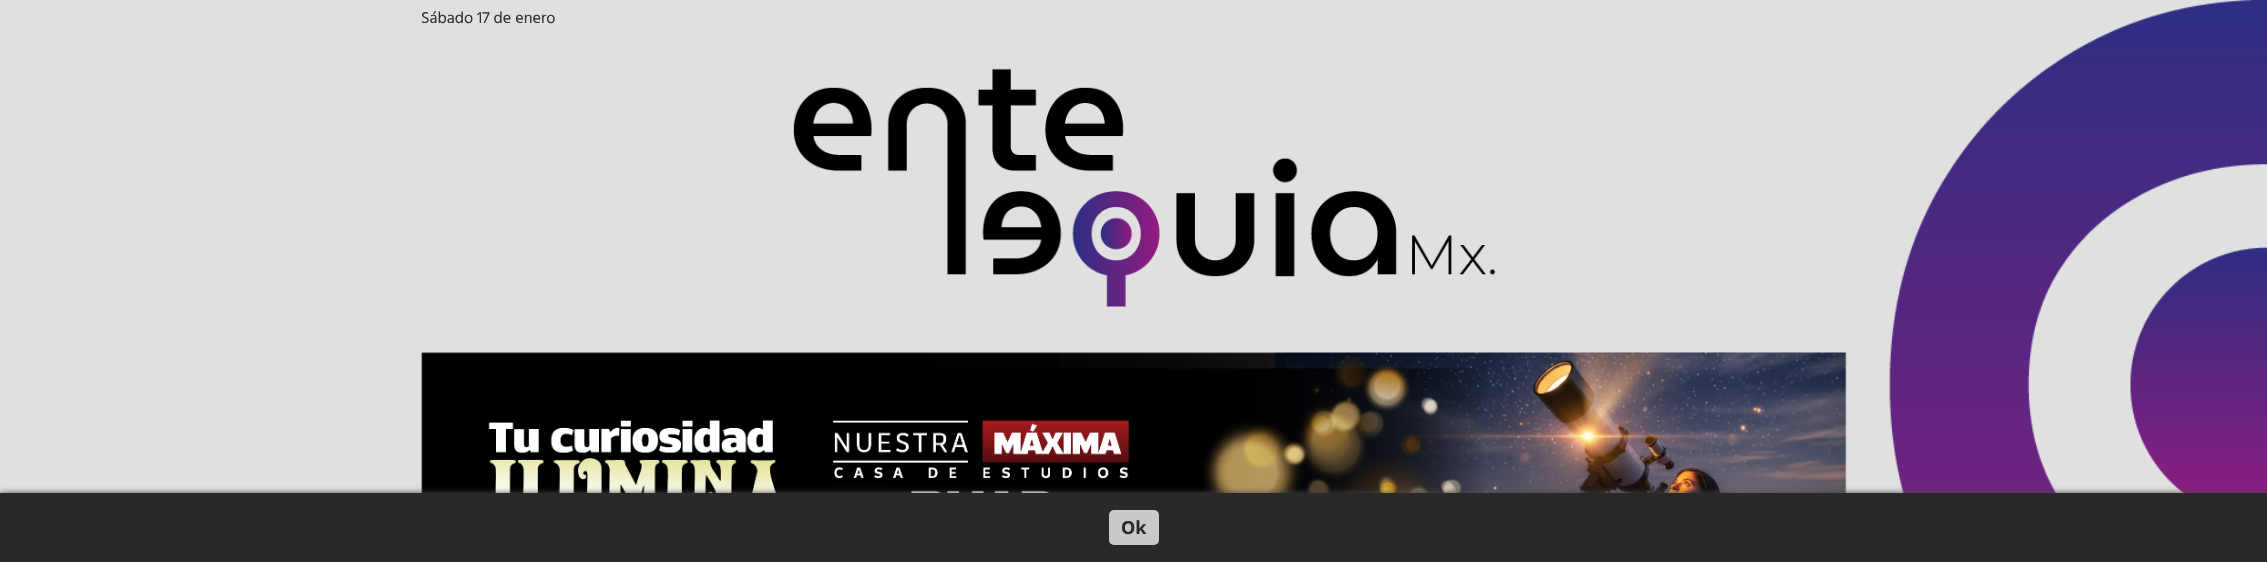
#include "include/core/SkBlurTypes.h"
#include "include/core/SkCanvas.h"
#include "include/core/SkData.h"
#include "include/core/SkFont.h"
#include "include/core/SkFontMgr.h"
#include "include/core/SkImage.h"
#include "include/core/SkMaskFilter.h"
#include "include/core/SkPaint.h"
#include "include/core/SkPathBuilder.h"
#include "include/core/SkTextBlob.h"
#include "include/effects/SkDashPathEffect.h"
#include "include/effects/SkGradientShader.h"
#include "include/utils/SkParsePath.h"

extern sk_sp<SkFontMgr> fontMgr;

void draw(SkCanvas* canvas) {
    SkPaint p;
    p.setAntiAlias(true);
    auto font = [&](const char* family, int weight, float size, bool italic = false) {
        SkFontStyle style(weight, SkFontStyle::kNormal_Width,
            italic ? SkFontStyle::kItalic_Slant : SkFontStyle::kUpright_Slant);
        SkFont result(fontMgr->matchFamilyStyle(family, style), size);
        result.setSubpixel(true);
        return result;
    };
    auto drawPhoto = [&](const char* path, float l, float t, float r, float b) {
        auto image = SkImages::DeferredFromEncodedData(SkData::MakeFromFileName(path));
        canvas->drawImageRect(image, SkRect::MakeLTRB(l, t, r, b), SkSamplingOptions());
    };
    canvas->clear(0xFFE0E0E0);
    drawPhoto("media/1.png", 1889, 0, 2267, 493);
    auto font1 = font("Hind", 400, 16.25f);
    p.setColor(0xFF333333);
    canvas->drawString("Sábado 17 de enero", 421, 23, font1, p);
    drawPhoto("media/2.png", 793, 68, 1496, 307);
    drawPhoto("media/3.png", 421, 352, 1847, 493);
    p.setColor(0xFF494949);
    p.setMaskFilter(SkMaskFilter::MakeBlur(kNormal_SkBlurStyle, 3));
    canvas->drawRect(SkRect::MakeLTRB(0, 493, 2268, 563), p);
    p.setMaskFilter(nullptr);
    p.setColor(0xFF292929);
    canvas->drawRect(SkRect::MakeLTRB(0, 493, 2267, 562), p);
    p.setColor(0xFFC9C9C9);
    canvas->drawRoundRect(SkRect::MakeLTRB(1109, 510, 1159, 545), 5, 5, p);
    auto font2 = font("Open Sans", 700, 18);
    p.setColor(0xFF292929);
    canvas->drawString("Ok", 1121, 534, font2, p);
}
